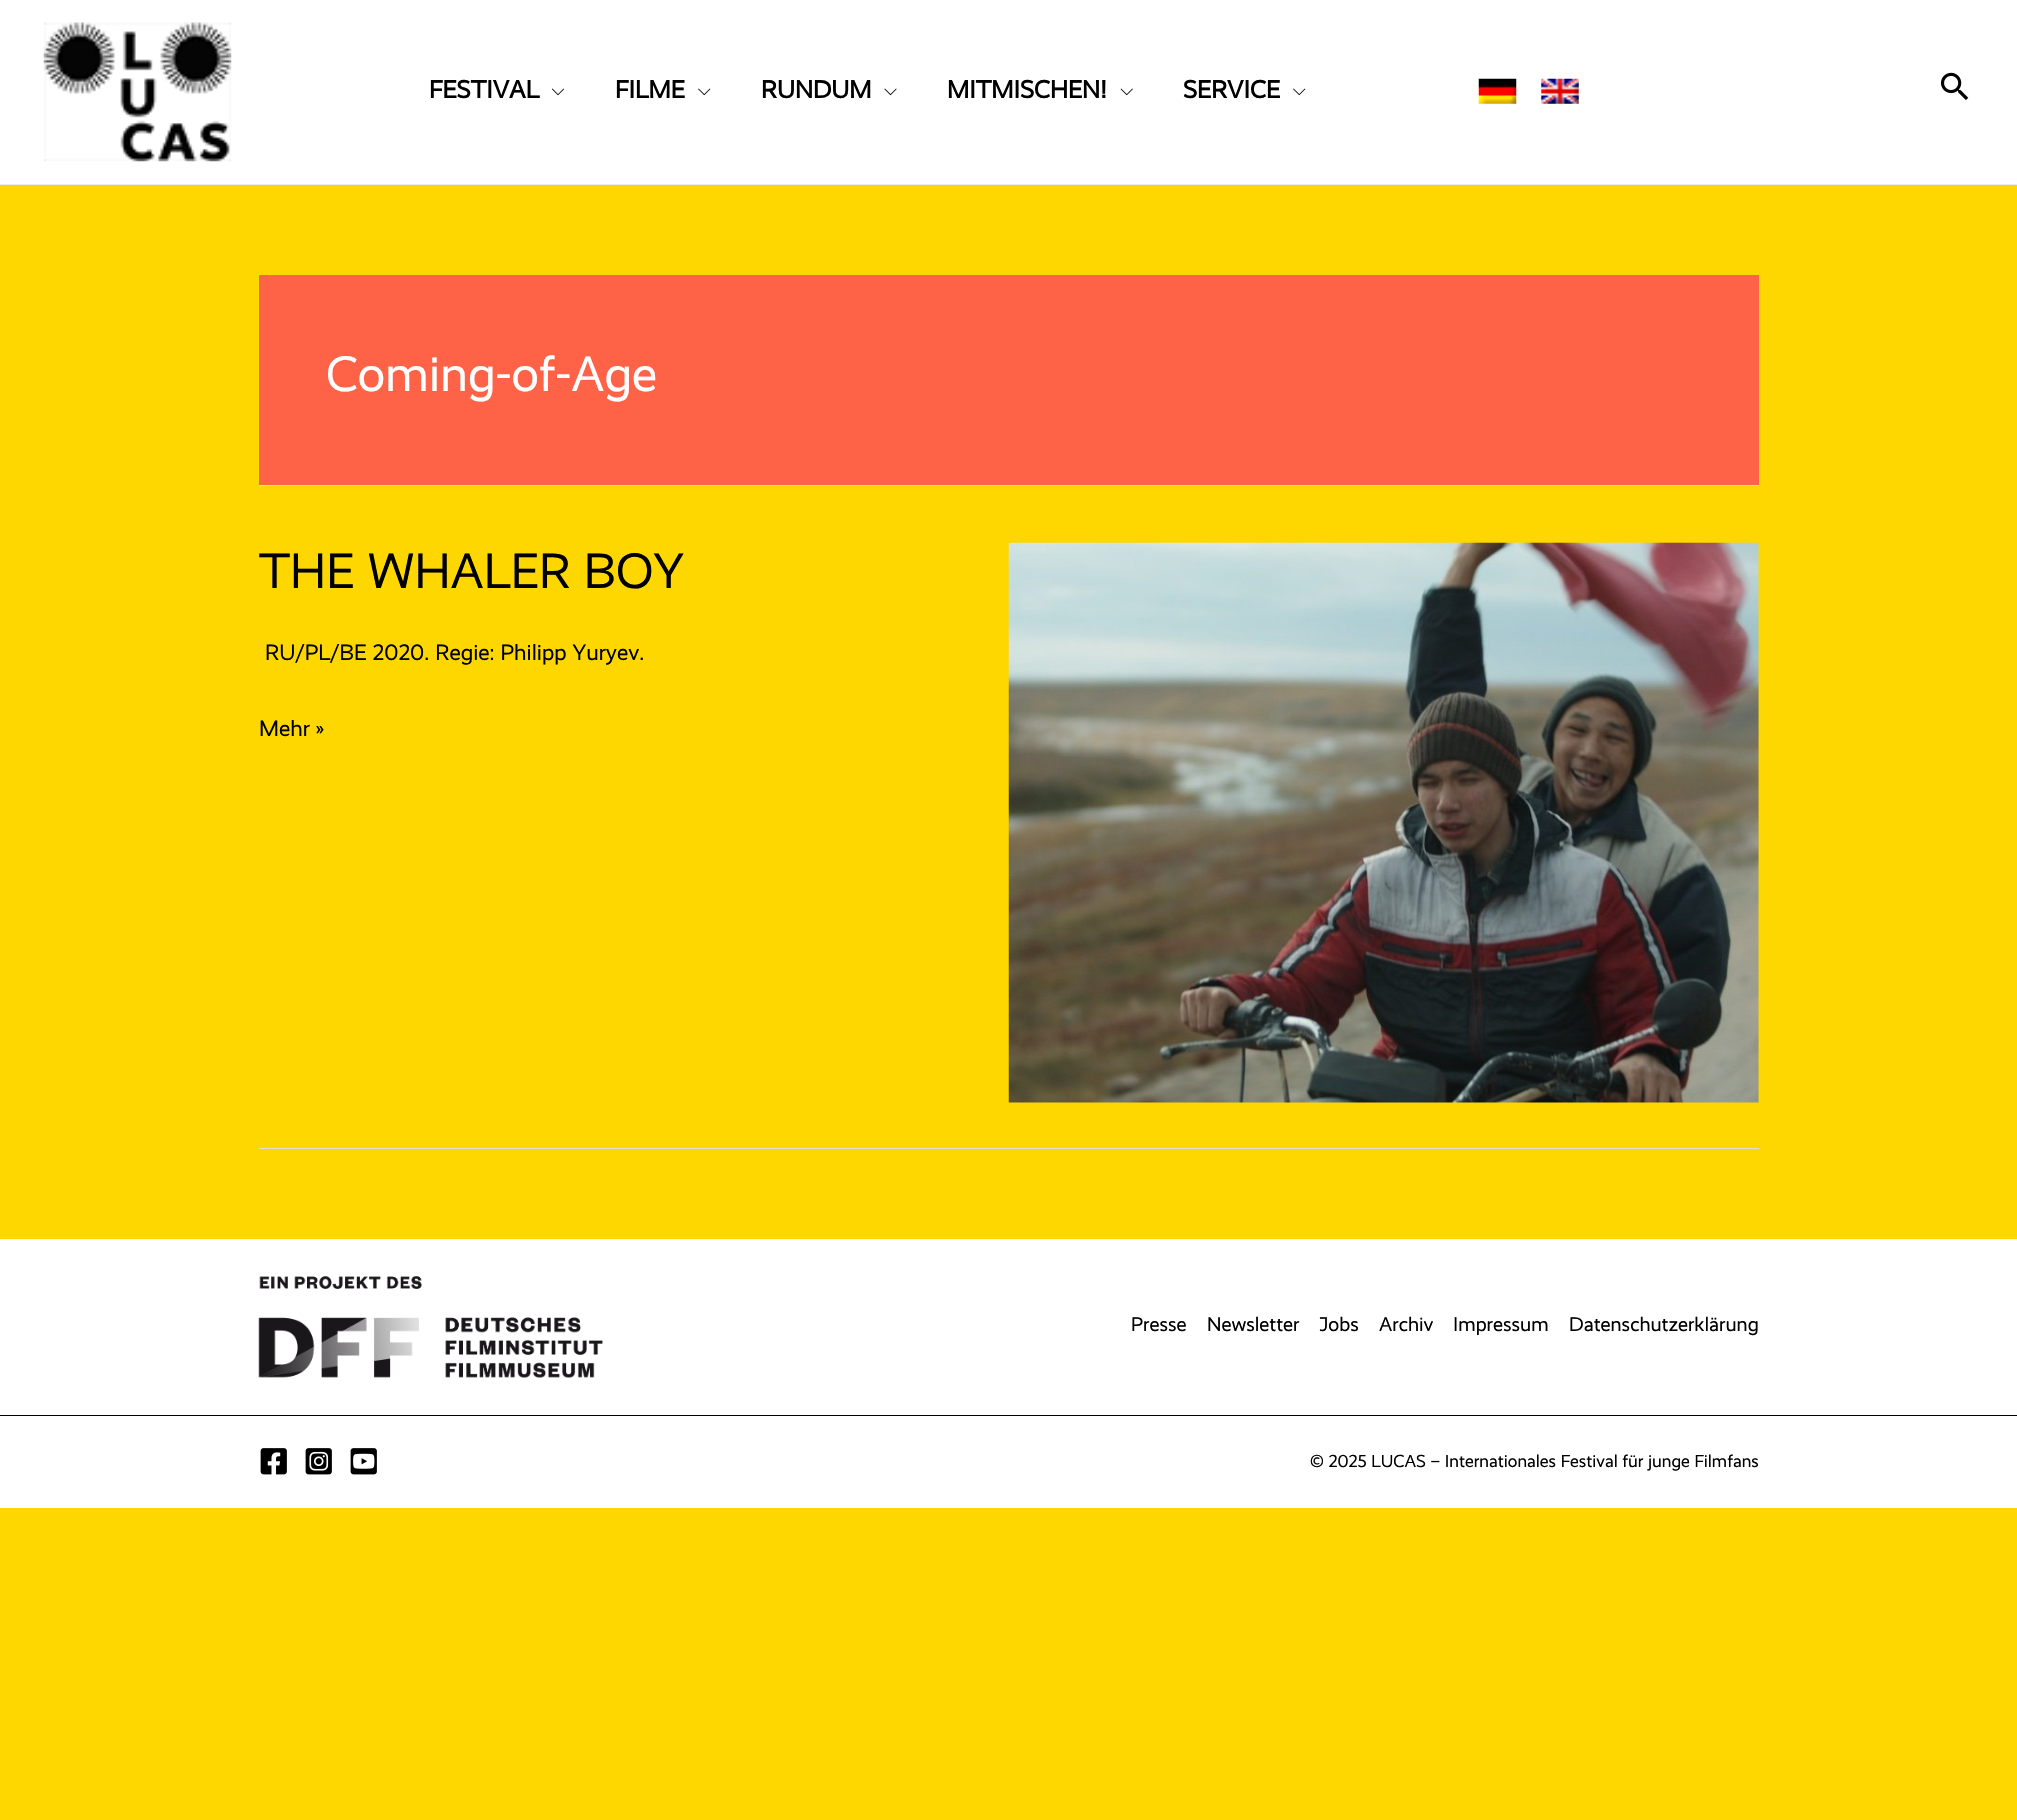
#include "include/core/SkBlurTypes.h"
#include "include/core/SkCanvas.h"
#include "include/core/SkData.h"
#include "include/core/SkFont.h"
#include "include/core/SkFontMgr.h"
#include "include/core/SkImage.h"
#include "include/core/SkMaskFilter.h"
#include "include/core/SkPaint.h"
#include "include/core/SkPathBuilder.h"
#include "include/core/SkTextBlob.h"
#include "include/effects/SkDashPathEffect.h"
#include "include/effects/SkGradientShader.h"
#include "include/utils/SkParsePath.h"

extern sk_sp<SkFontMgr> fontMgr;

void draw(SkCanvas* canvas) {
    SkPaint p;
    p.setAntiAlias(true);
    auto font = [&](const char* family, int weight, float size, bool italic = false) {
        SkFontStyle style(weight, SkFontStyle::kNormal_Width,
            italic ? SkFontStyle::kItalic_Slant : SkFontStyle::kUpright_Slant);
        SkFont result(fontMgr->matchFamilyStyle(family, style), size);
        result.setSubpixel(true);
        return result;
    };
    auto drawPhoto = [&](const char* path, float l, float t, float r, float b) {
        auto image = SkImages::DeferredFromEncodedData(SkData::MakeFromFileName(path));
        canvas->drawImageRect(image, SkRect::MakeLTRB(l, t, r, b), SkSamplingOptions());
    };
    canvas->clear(0xFFFFD700);
    p.setColor(0xFFFFFFFF);
    canvas->drawRect(SkRect::MakeLTRB(0, 0, 2017, 184), p);
    p.setColor(0xFFEAEAEA);
    canvas->drawRect(SkRect::MakeLTRB(0, 184, 2017, 185), p);
    drawPhoto("media/1.png", 43, 22, 232, 162);
    auto font1 = font("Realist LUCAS", 700, 25);
    p.setColor(0xFF000000);
    canvas->drawString("FESTIVAL", 429, 98, font1, p);
    drawPhoto("media/2.png", 552, 88, 564, 96);
    canvas->drawString("FILME", 615, 98, font1, p);
    drawPhoto("media/3.png", 698, 88, 711, 96);
    canvas->drawString("RUNDUM", 761, 98, font1, p);
    drawPhoto("media/4.png", 884, 88, 897, 96);
    canvas->drawString("MITMISCHEN!", 947, 98, font1, p);
    drawPhoto("media/5.png", 1120, 88, 1133, 96);
    canvas->drawString("SERVICE", 1183, 98, font1, p);
    drawPhoto("media/3.png", 1293, 88, 1306, 96);
    drawPhoto("media/6.png", 1478, 78, 1517, 104);
    drawPhoto("media/7.png", 1541, 78, 1579, 104);
    drawPhoto("media/8.png", 1940, 72, 1969, 100);
    p.setColor(0xFFFF6347);
    canvas->drawRect(SkRect::MakeLTRB(259, 275, 1759, 485), p);
    p.setColor(0xFFDDDDDD);
    canvas->drawRect(SkRect::MakeLTRB(259, 485, 1759, 486), p);
    auto font2 = font("Realist LUCAS", 400, 50);
    p.setColor(0xFFFFFFFF);
    canvas->drawString("Coming-of-Age", 326, 391, font2, p);
    p.setColor(0xFFDDDDDD);
    canvas->drawRect(SkRect::MakeLTRB(259, 1148, 1759, 1149), p);
    p.setColor(0xFF000000);
    canvas->drawString("THE WHALER BOY", 259, 588, font2, p);
    auto font3 = font("Realist LUCAS", 400, 22.5f);
    canvas->drawString("RU/PL/BE 2020. Regie: Philipp Yuryev.", 265, 660, font3, p);
    canvas->drawString("Mehr »", 259, 736, font3, p);
    drawPhoto("media/9.png", 1008, 542, 1759, 1103);
    p.setColor(0xFFFFFFFF);
    canvas->drawRect(SkRect::MakeLTRB(0, 1239, 2017, 1415), p);
    drawPhoto("media/10.png", 258, 1276, 603, 1378);
    auto font4 = font("Realist LUCAS", 400, 20);
    p.setColor(0xFF000000);
    {
        const struct { const char* s; float x, y; } items[] = {
            {"Presse", 1131, 1331},
            {"Newsletter", 1207, 1331},
            {"Jobs", 1319, 1331},
            {"Archiv", 1379, 1331},
            {"Impressum", 1453, 1331},
            {"Datenschutzerklärung", 1569, 1331},
        };
        for (auto [s, x, y] : items) {
            canvas->drawString(s, x, y, font4, p);
        }
    }
    p.setColor(0xFFFFFFFF);
    canvas->drawRect(SkRect::MakeLTRB(0, 1416, 2017, 1508), p);
    p.setColor(0xFF000000);
    canvas->drawRect(SkRect::MakeLTRB(0, 1415, 2017, 1416), p);
    drawPhoto("media/11.png", 260, 1448, 287, 1475);
    drawPhoto("media/12.png", 305, 1448, 332, 1475);
    drawPhoto("media/13.png", 350, 1448, 377, 1475);
    auto font5 = font("Realist LUCAS", 400, 17.5f);
    canvas->drawString("© 2025 LUCAS – Internationales Festival für junge Filmfans", 1310, 1467, font5, p);
}
